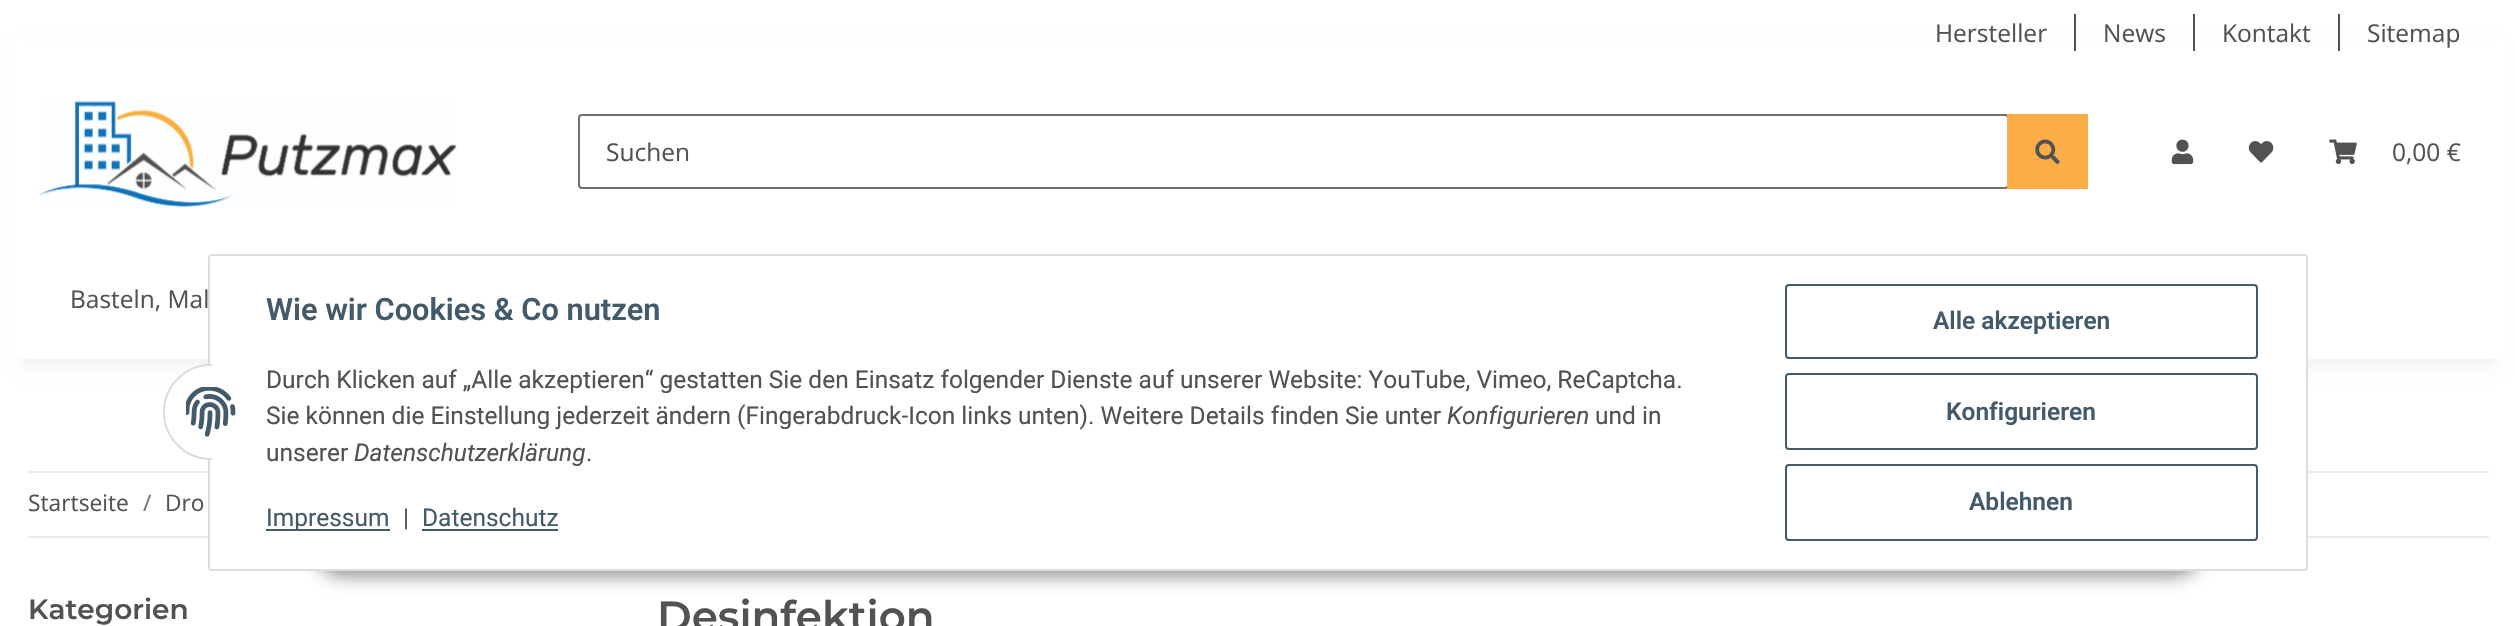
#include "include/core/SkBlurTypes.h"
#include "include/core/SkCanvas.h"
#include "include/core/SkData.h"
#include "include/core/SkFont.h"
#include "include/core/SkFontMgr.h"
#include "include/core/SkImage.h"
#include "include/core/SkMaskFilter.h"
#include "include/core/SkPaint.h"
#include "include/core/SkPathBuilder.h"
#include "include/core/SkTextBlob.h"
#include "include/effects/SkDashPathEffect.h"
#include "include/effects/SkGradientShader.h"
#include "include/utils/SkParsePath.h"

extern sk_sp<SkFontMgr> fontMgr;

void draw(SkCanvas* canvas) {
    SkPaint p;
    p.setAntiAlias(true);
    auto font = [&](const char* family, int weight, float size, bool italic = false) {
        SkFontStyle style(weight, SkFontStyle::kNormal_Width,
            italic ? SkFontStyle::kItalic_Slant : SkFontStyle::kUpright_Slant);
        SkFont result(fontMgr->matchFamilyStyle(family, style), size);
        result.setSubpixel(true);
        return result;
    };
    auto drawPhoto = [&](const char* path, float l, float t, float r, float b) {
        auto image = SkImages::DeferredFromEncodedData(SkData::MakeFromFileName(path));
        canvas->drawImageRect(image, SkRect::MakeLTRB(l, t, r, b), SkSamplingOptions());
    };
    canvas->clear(0xFFFFFFFF);
    p.setColor(0x0F000000);
    p.setMaskFilter(SkMaskFilter::MakeBlur(kNormal_SkBlurStyle, 8));
    canvas->drawRect(SkRect::MakeLTRB(21, 49, 2496, 366), p);
    p.setMaskFilter(nullptr);
    p.setColor(0xFFFFFFFF);
    canvas->drawRect(SkRect::MakeLTRB(13, 41, 2504, 359), p);
    auto font1 = font("Open Sans", 400, 24.5f);
    p.setColor(0xFF525252);
    canvas->drawString("Hersteller", 1935, 42, font1, p);
    canvas->drawRect(SkRect::MakeLTRB(2074, 14, 2076, 51), p);
    canvas->drawString("News", 2103, 42, font1, p);
    canvas->drawRect(SkRect::MakeLTRB(2193, 14, 2195, 51), p);
    canvas->drawString("Kontakt", 2222, 42, font1, p);
    canvas->drawRect(SkRect::MakeLTRB(2338, 14, 2340, 51), p);
    canvas->drawString("Sitemap", 2367, 42, font1, p);
    drawPhoto("media/1.png", 39, 100, 457, 208);
    p.setStyle(SkPaint::kStroke_Style);
    p.setStrokeWidth(2);
    p.setColor(0xFF707070);
    canvas->drawRoundRect(SkRect::MakeLTRB(579, 115, 2008, 188), 3, 3, p);
    p.setStyle(SkPaint::kFill_Style);
    p.setColor(0xFF525252);
    canvas->drawString("Suchen", 606, 161, font1, p);
    p.setColor(0xFFFBAE48);
    canvas->drawRect(SkRect::MakeLTRB(2007, 114, 2088, 189), p);
    drawPhoto("media/2.png", 2035, 139, 2060, 164);
    drawPhoto("media/3.png", 2171, 139, 2194, 165);
    drawPhoto("media/4.png", 2248, 141, 2274, 163);
    drawPhoto("media/5.png", 2329, 139, 2357, 164);
    p.setColor(0xFF525252);
    canvas->drawString("0,00 €", 2392, 161, font1, p);
    canvas->drawString("Basteln, Mal", 70, 308, font1, p);
    p.setColor(0xFFEBEBEB);
    canvas->drawRect(SkRect::MakeLTRB(28, 536, 2489, 538), p);
    p.setColor(0x73000000);
    p.setMaskFilter(SkMaskFilter::MakeBlur(kNormal_SkBlurStyle, 9));
    canvas->drawRoundRect(SkRect::MakeLTRB(315, 520, 2202, 576), 28, 28, p);
    p.setMaskFilter(nullptr);
    p.setColor(0xFFEBEBEB);
    canvas->drawRect(SkRect::MakeLTRB(28, 471, 2489, 473), p);
    p.setColor(0xFFFFFFFF);
    canvas->drawRoundRect(SkRect::MakeLTRB(209, 255, 2307, 570), 3, 3, p);
    p.setStyle(SkPaint::kStroke_Style);
    p.setColor(0xFFDDDDDD);
    canvas->drawRoundRect(SkRect::MakeLTRB(209, 255, 2307, 570), 3, 3, p);
    p.setStyle(SkPaint::kFill_Style);
    p.setColor(0xFFFFFFFF);
    canvas->drawCircle(211, 412, 47, p);
    p.setStyle(SkPaint::kStroke_Style);
    p.setColor(0xFFDDDDDD);
    canvas->drawCircle(211, 412, 47, p);
    p.setStyle(SkPaint::kFill_Style);
    p.setColor(0xFFFFFFFF);
    canvas->drawRect(SkRect::MakeLTRB(212, 364, 259, 460), p);
    drawPhoto("media/6.png", 186, 387, 236, 437);
    auto font2 = font("Roboto", 600, 30.75f);
    p.setColor(0xFF435A6B);
    canvas->drawString("Wie wir Cookies & Co nutzen", 266, 320, font2, p);
    auto font3 = font("Roboto", 400, 24.5f);
    p.setColor(0xFF525252);
    canvas->drawString("Durch Klicken auf „Alle akzeptieren“ gestatten Sie den Einsatz folgender Dienste auf unserer Website: YouTube, Vimeo, ReCaptcha.", 266, 388, font3, p);
    canvas->drawString("Sie können die Einstellung jederzeit ändern (Fingerabdruck-Icon links unten). Weitere Details finden Sie unter", 266, 424, font3, p);
    auto font4 = font("Roboto", 400, 24.5f, true);
    canvas->drawString("Konfigurieren", 1447, 424, font4, p);
    canvas->drawString("und in", 1595, 424, font3, p);
    canvas->drawString("unserer", 266, 461, font3, p);
    canvas->drawString("Datenschutzerklärung", 354, 461, font4, p);
    canvas->drawString(".", 586, 461, font3, p);
    p.setColor(0xFF435A6B);
    canvas->drawRect(SkRect::MakeLTRB(266, 529, 390, 531), p);
    canvas->drawString("Impressum", 266, 526, font3, p);
    p.setColor(0xFF525252);
    canvas->drawString("|", 403, 526, font3, p);
    p.setColor(0xFF435A6B);
    canvas->drawString("Datenschutz", 422, 526, font3, p);
    canvas->drawRect(SkRect::MakeLTRB(422, 529, 558, 531), p);
    p.setStyle(SkPaint::kStroke_Style);
    canvas->drawRoundRect(SkRect::MakeLTRB(1786, 285, 2257, 358), 3, 3, p);
    auto font5 = font("Roboto", 600, 24.5f);
    p.setStyle(SkPaint::kFill_Style);
    canvas->drawString("Alle akzeptieren", 1933, 329, font5, p);
    p.setStyle(SkPaint::kStroke_Style);
    canvas->drawRoundRect(SkRect::MakeLTRB(1786, 374, 2257, 449), 3, 3, p);
    p.setStyle(SkPaint::kFill_Style);
    canvas->drawString("Konfigurieren", 1946, 420, font5, p);
    p.setStyle(SkPaint::kStroke_Style);
    canvas->drawRoundRect(SkRect::MakeLTRB(1786, 465, 2257, 540), 3, 3, p);
    p.setStyle(SkPaint::kFill_Style);
    canvas->drawString("Ablehnen", 1969, 510, font5, p);
    auto font6 = font("Open Sans", 400, 22.75f);
    p.setColor(0xFF525252);
    canvas->drawString("Startseite", 28, 511, font6, p);
    p.setColor(0xFF707070);
    canvas->drawString("/", 143, 511, font6, p);
    p.setColor(0xFF525252);
    canvas->drawString("Dro", 165, 511, font6, p);
    auto font7 = font("Montserrat", 600, 28);
    canvas->drawString("Kategorien", 28, 619, font7, p);
    auto font8 = font("Montserrat", 600, 42);
    canvas->drawString("Desinfektion", 657, 631, font8, p);
}
